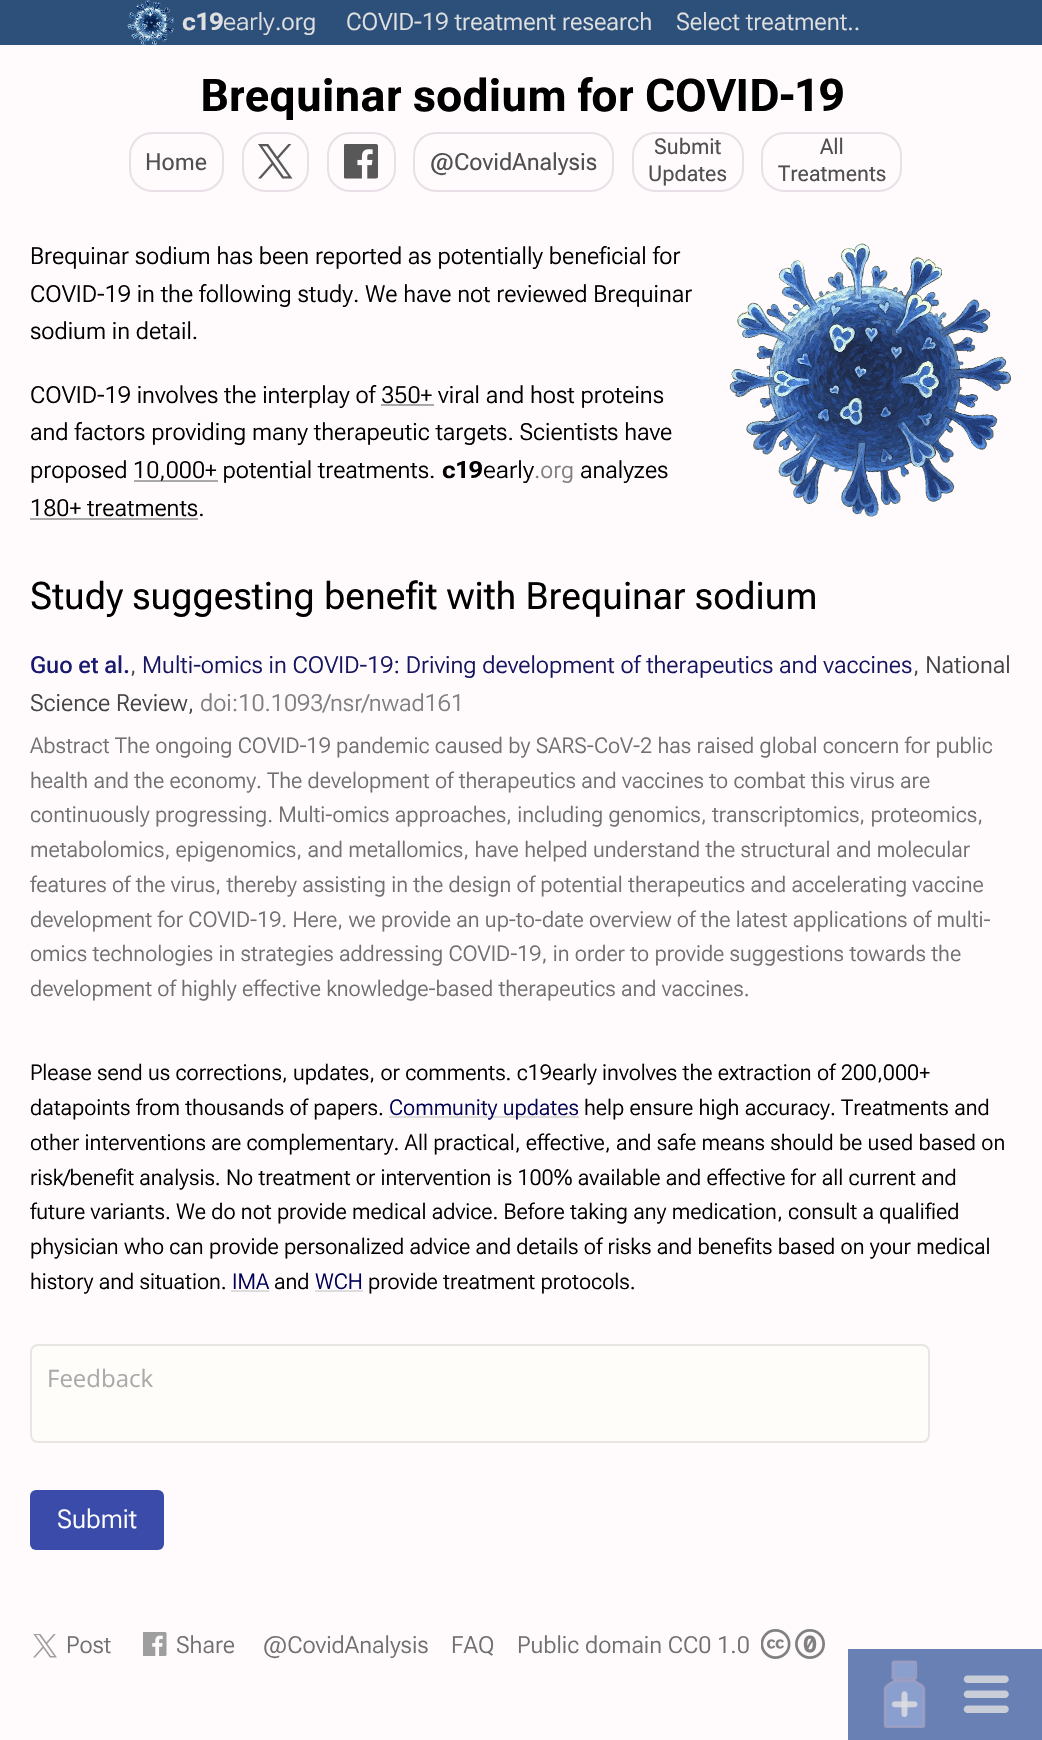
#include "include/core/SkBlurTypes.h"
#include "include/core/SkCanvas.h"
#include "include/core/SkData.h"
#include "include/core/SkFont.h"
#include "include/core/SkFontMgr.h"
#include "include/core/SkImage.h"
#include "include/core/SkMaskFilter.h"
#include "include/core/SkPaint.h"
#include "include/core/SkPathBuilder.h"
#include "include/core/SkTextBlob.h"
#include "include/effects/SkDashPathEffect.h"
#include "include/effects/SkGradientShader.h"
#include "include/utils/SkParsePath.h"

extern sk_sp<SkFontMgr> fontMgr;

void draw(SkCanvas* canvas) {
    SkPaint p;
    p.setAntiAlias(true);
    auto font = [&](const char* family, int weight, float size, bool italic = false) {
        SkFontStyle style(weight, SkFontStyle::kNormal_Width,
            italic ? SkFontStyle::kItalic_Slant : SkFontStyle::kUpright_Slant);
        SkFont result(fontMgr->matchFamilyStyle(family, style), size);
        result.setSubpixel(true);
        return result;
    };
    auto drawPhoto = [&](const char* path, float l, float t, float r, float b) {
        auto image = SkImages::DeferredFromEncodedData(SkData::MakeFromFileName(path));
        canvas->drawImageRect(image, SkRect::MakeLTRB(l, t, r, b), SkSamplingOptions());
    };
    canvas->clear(0xFFFFFAFC);
    p.setColor(0xFF2C507A);
    canvas->drawRect(SkRect::MakeLTRB(0, 0, 1042, 45), p);
    drawPhoto("media/1.png", 127, 0, 174, 46);
    auto font1 = font("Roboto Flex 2", 700, 24, true);
    p.setColor(0xFFE0E0E0);
    canvas->drawString("c19", 182, 30, font1, p);
    auto font2 = font("Roboto Flex", 200, 24, true);
    canvas->drawString("early", 223, 30, font2, p);
    auto font3 = font("Roboto Flex", 300, 24, true);
    {
        const struct { const char* s; float x, y; } items[] = {
            {".org", 275, 30},
            {"COVID-19 treatment research", 346, 30},
            {"Select treatment..", 676, 30},
        };
        for (auto [s, x, y] : items) {
            canvas->drawString(s, x, y, font3, p);
        }
    }
    auto font4 = font("Roboto Flex", 700, 44.9f, true);
    p.setColor(0xFF000000);
    canvas->drawString("Brequinar sodium for COVID-19", 200, 111, font4, p);
    p.setStyle(SkPaint::kStroke_Style);
    p.setStrokeWidth(2);
    p.setColor(0xFFE9E0E7);
    canvas->drawRoundRect(SkRect::MakeLTRB(130, 133, 223, 191), 22, 22, p);
    auto font5 = font("Roboto Flex", 400, 23.6f, true);
    p.setStyle(SkPaint::kFill_Style);
    p.setColor(0xFF505050);
    canvas->drawString("Home", 145, 170, font5, p);
    p.setStyle(SkPaint::kStroke_Style);
    p.setColor(0xFFE9E0E7);
    canvas->drawRoundRect(SkRect::MakeLTRB(243, 133, 308, 191), 22, 22, p);
    drawPhoto("media/2.png", 258, 144, 293, 179);
    canvas->drawRoundRect(SkRect::MakeLTRB(328, 133, 395, 191), 22, 22, p);
    drawPhoto("media/3.png", 344, 144, 378, 179);
    canvas->drawRoundRect(SkRect::MakeLTRB(414, 133, 613, 191), 22, 22, p);
    p.setStyle(SkPaint::kFill_Style);
    p.setColor(0xFF505050);
    canvas->drawString("@CovidAnalysis", 430, 170, font5, p);
    p.setStyle(SkPaint::kStroke_Style);
    p.setColor(0xFFE9E0E7);
    canvas->drawRoundRect(SkRect::MakeLTRB(633, 133, 743, 191), 22, 22, p);
    auto font6 = font("Roboto Flex", 400, 21.75f, true);
    p.setStyle(SkPaint::kFill_Style);
    p.setColor(0xFF505050);
    canvas->drawString("Submit", 654, 154, font6, p);
    canvas->drawString("Updates", 648, 181, font6, p);
    p.setStyle(SkPaint::kStroke_Style);
    p.setColor(0xFFE9E0E7);
    canvas->drawRoundRect(SkRect::MakeLTRB(762, 133, 901, 191), 22, 22, p);
    p.setStyle(SkPaint::kFill_Style);
    p.setColor(0xFF505050);
    canvas->drawString("All", 820, 154, font6, p);
    canvas->drawString("Treatments", 778, 181, font6, p);
    auto font7 = font("Roboto Flex", 300, 23.6f, true);
    p.setColor(0xFF000000);
    canvas->drawString("Brequinar sodium has been reported as potentially beneficial for", 30, 264, font7, p);
    drawPhoto("media/4.png", 729, 243, 1012, 517);
    {
        const struct { const char* s; float x, y; } items[] = {
            {"COVID-19 in the following study. We have not reviewed Brequinar", 30, 302},
            {"sodium in detail.", 30, 339},
            {"COVID-19 involves the interplay of 350+ viral and host proteins", 30, 403},
        };
        for (auto [s, x, y] : items) {
            canvas->drawString(s, x, y, font7, p);
        }
    }
    p.setColor(0xFFA9A9A9);
    canvas->drawRect(SkRect::MakeLTRB(381, 404, 434, 406), p);
    p.setColor(0xFF000000);
    canvas->drawString("and factors providing many therapeutic targets. Scientists have", 30, 440, font7, p);
    canvas->drawString("proposed", 30, 478, font7, p);
    p.setColor(0xFFA9A9A9);
    canvas->drawRect(SkRect::MakeLTRB(134, 480, 218, 482), p);
    p.setColor(0xFF000000);
    canvas->drawString("10,000+ potential treatments.", 133, 478, font7, p);
    auto font8 = font("Roboto Flex 2", 700, 23.6f, true);
    canvas->drawString("c19", 442, 478, font8, p);
    auto font9 = font("Roboto Flex 2", 300, 23.6f, true);
    canvas->drawString("early", 483, 478, font9, p);
    auto font10 = font("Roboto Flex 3", 300, 23.6f, true);
    p.setColor(0xFF808080);
    canvas->drawString(".org", 534, 478, font10, p);
    p.setColor(0xFF000000);
    canvas->drawString("analyzes", 580, 478, font7, p);
    canvas->drawString("180+ treatments.", 30, 516, font7, p);
    p.setColor(0xFFA9A9A9);
    canvas->drawRect(SkRect::MakeLTRB(30, 518, 198, 520), p);
    auto font11 = font("Roboto Flex", 400, 37.8f, true);
    p.setColor(0xFF000000);
    canvas->drawString("Study suggesting benefit with Brequinar sodium", 30, 609, font11, p);
    auto font12 = font("Roboto Flex", 500, 23.6f, true);
    p.setColor(0xFF19196F);
    canvas->drawString("Guo et al.", 30, 673, font12, p);
    p.setColor(0xFF444444);
    canvas->drawString(",", 130, 673, font7, p);
    p.setColor(0xFF161660);
    canvas->drawString("Multi-omics in COVID-19: Driving development of therapeutics and vaccines", 142, 673, font7, p);
    p.setColor(0xFF444444);
    canvas->drawString(", National", 913, 673, font7, p);
    canvas->drawString("Science Review,", 30, 711, font7, p);
    p.setColor(0xFF808080);
    canvas->drawString("doi:10.1093/nsr/nwad161", 200, 711, font7, p);
    auto font13 = font("Roboto Flex", 300, 21.75f, true);
    p.setColor(0xFF707070);
    {
        const struct { const char* s; float x, y; } items[] = {
            {"Abstract The ongoing COVID-19 pandemic caused by SARS-CoV-2 has raised global concern for public", 30, 753},
            {"health and the economy. The development of therapeutics and vaccines to combat this virus are", 30, 788},
            {"continuously progressing. Multi-omics approaches, including genomics, transcriptomics, proteomics,", 30, 822},
            {"metabolomics, epigenomics, and metallomics, have helped understand the structural and molecular", 30, 857},
            {"features of the virus, thereby assisting in the design of potential therapeutics and accelerating vaccine", 30, 892},
            {"development for COVID-19. Here, we provide an up-to-date overview of the latest applications of multi-", 30, 927},
            {"omics technologies in strategies addressing COVID-19, in order to provide suggestions towards the", 30, 961},
            {"development of highly effective knowledge-based therapeutics and vaccines.", 30, 996},
        };
        for (auto [s, x, y] : items) {
            canvas->drawString(s, x, y, font13, p);
        }
    }
    p.setColor(0xFF000000);
    canvas->drawString("Please send us corrections, updates, or comments. c19early involves the extraction of 200,000+", 30, 1080, font13, p);
    canvas->drawString("datapoints from thousands of papers.", 30, 1115, font13, p);
    p.setColor(0xFFDDDDDD);
    canvas->drawRect(SkRect::MakeLTRB(389, 1116, 579, 1118), p);
    p.setColor(0xFF000055);
    canvas->drawString("Community updates", 389, 1115, font13, p);
    p.setColor(0xFF000000);
    {
        const struct { const char* s; float x, y; } items[] = {
            {"help ensure high accuracy. Treatments and", 584, 1115},
            {"other interventions are complementary. All practical, effective, and safe means should be used based on", 30, 1150},
            {"risk/benefit analysis. No treatment or intervention is 100% available and effective for all current and", 30, 1185},
            {"future variants. We do not provide medical advice. Before taking any medication, consult a qualified", 30, 1219},
            {"physician who can provide personalized advice and details of risks and benefits based on your medical", 30, 1254},
            {"history and situation.", 30, 1289},
        };
        for (auto [s, x, y] : items) {
            canvas->drawString(s, x, y, font13, p);
        }
    }
    p.setColor(0xFF000055);
    canvas->drawString("IMA", 232, 1289, font13, p);
    p.setColor(0xFFDDDDDD);
    canvas->drawRect(SkRect::MakeLTRB(231, 1290, 269, 1292), p);
    p.setColor(0xFF000000);
    canvas->drawString("and", 274, 1289, font13, p);
    p.setColor(0xFF000055);
    canvas->drawString("WCH", 315, 1289, font13, p);
    p.setColor(0xFFDDDDDD);
    canvas->drawRect(SkRect::MakeLTRB(315, 1290, 363, 1292), p);
    p.setColor(0xFF000000);
    canvas->drawString("provide treatment protocols.", 368, 1289, font13, p);
    p.setColor(0xFFFFFDFA);
    canvas->drawRoundRect(SkRect::MakeLTRB(31, 1345, 929, 1442), 7, 7, p);
    p.setStyle(SkPaint::kStroke_Style);
    p.setColor(0xFFE9E5E2);
    canvas->drawRoundRect(SkRect::MakeLTRB(31, 1345, 929, 1442), 7, 7, p);
    auto font14 = font("Open Sans", 400, 24);
    p.setStyle(SkPaint::kFill_Style);
    p.setColor(0xFFAAAAAA);
    canvas->drawString("Feedback", 47, 1387, font14, p);
    p.setColor(0xFF3B4BAA);
    canvas->drawRoundRect(SkRect::MakeLTRB(30, 1490, 164, 1550), 6, 6, p);
    auto font15 = font("Roboto Flex", 300, 26, true);
    p.setColor(0xFFFFFFFF);
    canvas->drawString("Submit", 57, 1528, font15, p);
    drawPhoto("media/5.png", 33, 1634, 57, 1658);
    p.setColor(0xFF707070);
    canvas->drawString("Post", 66, 1653, font7, p);
    drawPhoto("media/6.png", 143, 1632, 167, 1656);
    {
        const struct { const char* s; float x, y; } items[] = {
            {"Share", 176, 1653},
            {"@CovidAnalysis", 263, 1653},
            {"FAQ", 451, 1653},
            {"Public domain CC0 1.0", 517, 1653},
        };
        for (auto [s, x, y] : items) {
            canvas->drawString(s, x, y, font7, p);
        }
    }
    drawPhoto("media/7.png", 761, 1629, 791, 1659);
    drawPhoto("media/8.png", 795, 1629, 825, 1659);
    p.setColor(0xFF6980B4);
    canvas->drawRect(SkRect::MakeLTRB(848, 1649, 1042, 1740), p);
    drawPhoto("media/9.png", 883, 1660, 926, 1728);
    drawPhoto("media/10.png", 963, 1675, 1009, 1713);
}
